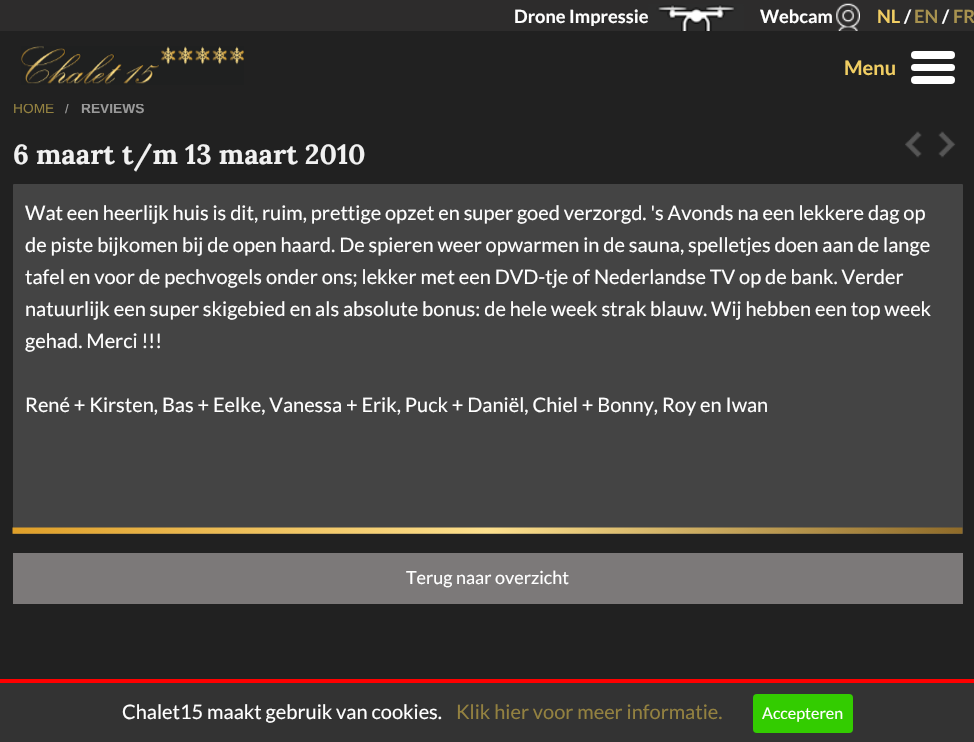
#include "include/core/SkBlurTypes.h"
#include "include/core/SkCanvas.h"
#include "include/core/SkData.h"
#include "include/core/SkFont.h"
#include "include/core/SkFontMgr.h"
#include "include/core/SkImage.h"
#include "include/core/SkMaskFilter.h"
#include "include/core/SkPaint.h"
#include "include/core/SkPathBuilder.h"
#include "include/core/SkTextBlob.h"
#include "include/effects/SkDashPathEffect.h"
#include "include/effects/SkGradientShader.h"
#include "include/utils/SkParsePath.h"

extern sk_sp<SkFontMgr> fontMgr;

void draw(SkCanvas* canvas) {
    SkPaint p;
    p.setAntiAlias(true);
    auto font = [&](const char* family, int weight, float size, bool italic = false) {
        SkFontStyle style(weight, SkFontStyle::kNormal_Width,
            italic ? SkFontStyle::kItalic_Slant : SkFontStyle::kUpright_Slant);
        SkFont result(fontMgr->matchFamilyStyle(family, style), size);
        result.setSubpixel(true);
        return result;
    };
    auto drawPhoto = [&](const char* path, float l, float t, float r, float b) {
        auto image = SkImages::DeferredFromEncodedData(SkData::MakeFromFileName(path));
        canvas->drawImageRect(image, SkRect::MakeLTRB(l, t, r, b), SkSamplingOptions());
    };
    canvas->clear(0xFF212121);
    p.setColor(0xFF2D2C2C);
    canvas->drawRect(SkRect::MakeLTRB(0, 0, 974, 31), p);
    auto font1 = font("Lato", 700, 18.25f);
    p.setColor(0xFFFFFFFF);
    canvas->drawString("Drone Impressie", 514, 23, font1, p);
    drawPhoto("media/1.png", 648, 4, 744, 31);
    canvas->drawString("Webcam", 760, 23, font1, p);
    drawPhoto("media/2.png", 836, 3, 860, 31);
    p.setColor(0xFFF1CE63);
    canvas->drawString("NL", 877, 23, font1, p);
    p.setColor(0xFFFFFFFF);
    canvas->drawString("/", 904, 23, font1, p);
    p.setColor(0xFFA8924F);
    canvas->drawString("EN", 914, 23, font1, p);
    p.setColor(0xFFFFFFFF);
    canvas->drawString("/", 942, 23, font1, p);
    p.setColor(0xFFA8924F);
    canvas->drawString("FR", 953, 23, font1, p);
    auto font2 = font("Liberation Sans", 400, 13.75f);
    p.setColor(0xFF938140);
    canvas->drawString("HOME", 13, 113, font2, p);
    p.setColor(0xFF999999);
    canvas->drawString("/", 65, 113, font2, p);
    auto font3 = font("Liberation Sans", 700, 13.75f);
    canvas->drawString("REVIEWS", 81, 113, font3, p);
    p.setColor(0xFF212121);
    canvas->drawRect(SkRect::MakeLTRB(13, 103, 142, 104), p);
    drawPhoto("media/3.png", 21, 46, 244, 85);
    auto font4 = font("Lato", 700, 20);
    p.setColor(0xFFF1CE63);
    canvas->drawString("Menu", 844, 75, font4, p);
    p.setColor(0xFFFFFFFF);
    canvas->drawRoundRect(SkRect::MakeLTRB(911, 76, 955, 84), 4, 4, p);
    canvas->drawRoundRect(SkRect::MakeLTRB(911, 64, 955, 71), 3.5f, 3.5f, p);
    canvas->drawRoundRect(SkRect::MakeLTRB(911, 51, 955, 59), 4, 4, p);
    auto font5 = font("Lora", 700, 27.5f);
    p.setColor(0xFFF1F1F1);
    canvas->drawString("6 maart t/m 13 maart 2010", 13, 164, font5, p);
    drawPhoto("media/4.png", 905, 131, 922, 158);
    drawPhoto("media/5.png", 938, 131, 956, 158);
    p.setColor(0xFF444444);
    canvas->drawRoundRect(SkRect::MakeLTRB(13, 184, 963, 534), 1, 1, p);
    drawPhoto("media/6.png", 12, 527, 963, 534);
    auto font6 = font("Lato", 400, 20);
    p.setColor(0xFFFFFFFF);
    {
        const struct { const char* s; float x, y; } items[] = {
            {"Wat een heerlijk huis is dit, ruim, prettige opzet en super goed verzorgd. 's Avonds na een lekkere dag op", 25, 220},
            {"de piste bijkomen bij de open haard. De spieren weer opwarmen in de sauna, spelletjes doen aan de lange", 25, 252},
            {"tafel en voor de pechvogels onder ons; lekker met een DVD-tje of Nederlandse TV op de bank. Verder", 25, 284},
            {"natuurlijk een super skigebied en als absolute bonus: de hele week strak blauw. Wij hebben een top week", 25, 316},
            {"gehad. Merci !!!", 25, 348},
            {"René + Kirsten, Bas + Eelke, Vanessa + Erik, Puck + Daniël, Chiel + Bonny, Roy en Iwan", 25, 412},
        };
        for (auto [s, x, y] : items) {
            canvas->drawString(s, x, y, font6, p);
        }
    }
    p.setColor(0xFF7C7979);
    canvas->drawRect(SkRect::MakeLTRB(13, 553, 963, 604), p);
    auto font7 = font("Lato", 400, 18);
    p.setColor(0xFFFFFFFF);
    canvas->drawString("Terug naar overzicht", 406, 584, font7, p);
    p.setColor(0xFF333333);
    canvas->drawRect(SkRect::MakeLTRB(0, 683, 974, 742), p);
    p.setColor(0xFFFF0000);
    canvas->drawRect(SkRect::MakeLTRB(0, 679, 974, 683), p);
    p.setColor(0xFFFFFFFF);
    canvas->drawString("Chalet15 maakt gebruik van cookies.", 122, 719, font6, p);
    p.setColor(0xFF938140);
    canvas->drawString("Klik hier voor meer informatie.", 456, 719, font6, p);
    p.setColor(0xFF33CC00);
    canvas->drawRoundRect(SkRect::MakeLTRB(753, 694, 853, 733), 4, 4, p);
    auto font8 = font("Lato", 400, 16);
    p.setColor(0xFFFFFFFF);
    canvas->drawString("Accepteren", 762, 719, font8, p);
}
